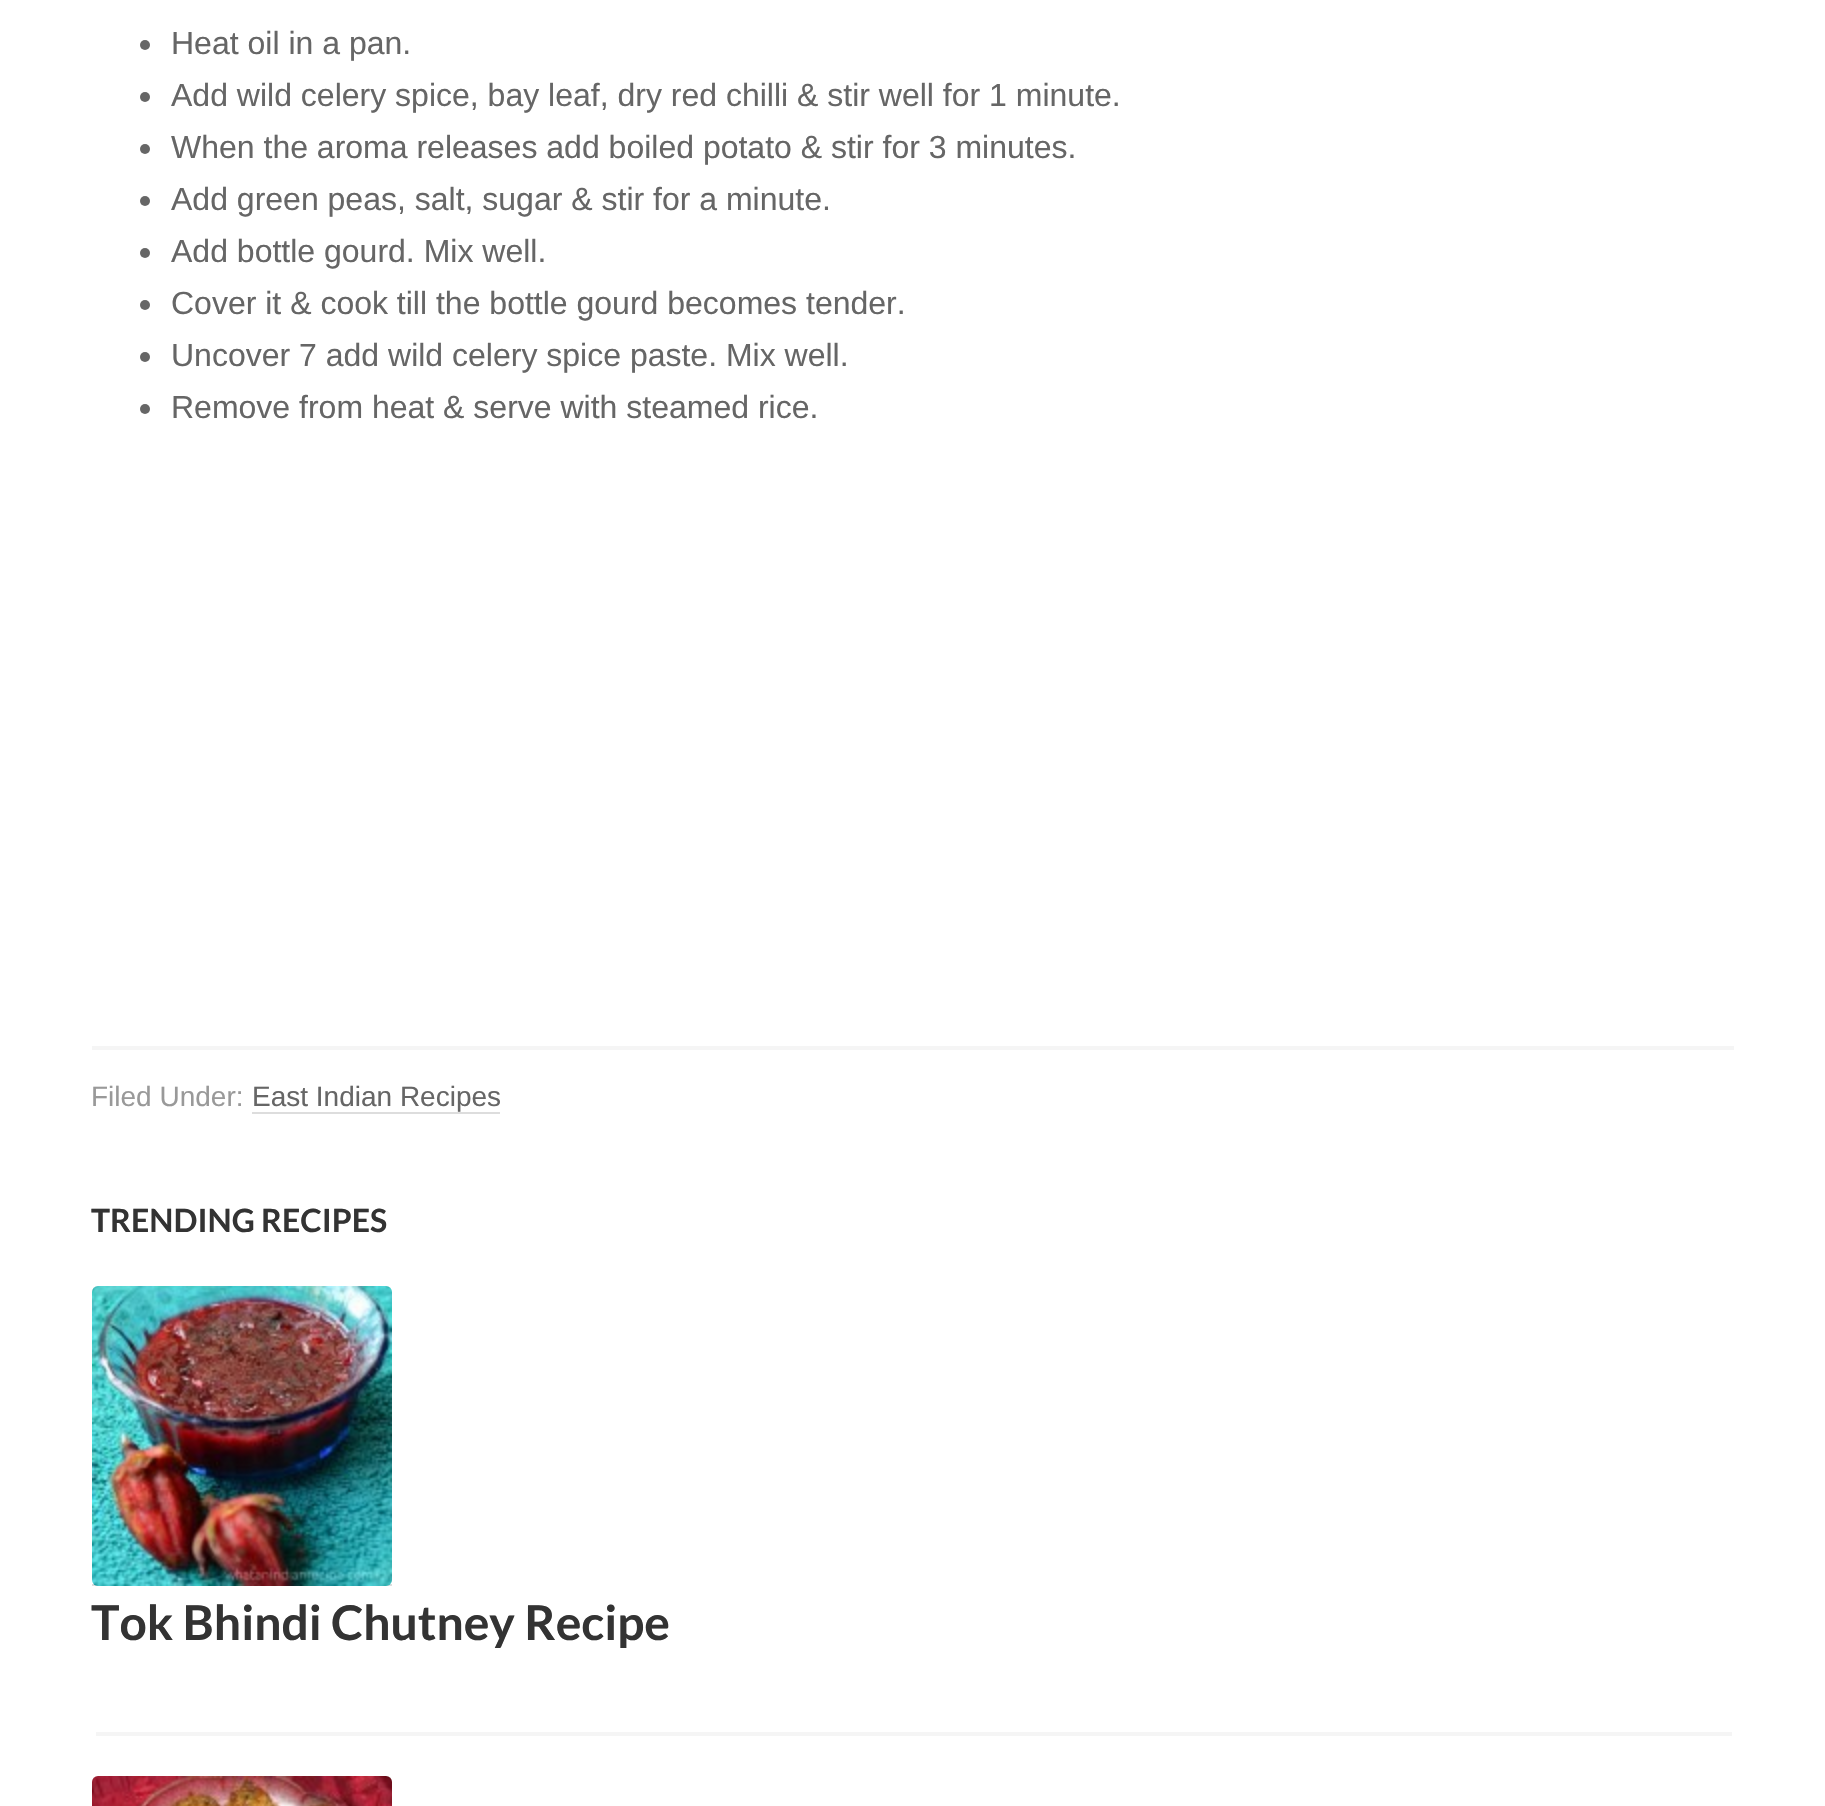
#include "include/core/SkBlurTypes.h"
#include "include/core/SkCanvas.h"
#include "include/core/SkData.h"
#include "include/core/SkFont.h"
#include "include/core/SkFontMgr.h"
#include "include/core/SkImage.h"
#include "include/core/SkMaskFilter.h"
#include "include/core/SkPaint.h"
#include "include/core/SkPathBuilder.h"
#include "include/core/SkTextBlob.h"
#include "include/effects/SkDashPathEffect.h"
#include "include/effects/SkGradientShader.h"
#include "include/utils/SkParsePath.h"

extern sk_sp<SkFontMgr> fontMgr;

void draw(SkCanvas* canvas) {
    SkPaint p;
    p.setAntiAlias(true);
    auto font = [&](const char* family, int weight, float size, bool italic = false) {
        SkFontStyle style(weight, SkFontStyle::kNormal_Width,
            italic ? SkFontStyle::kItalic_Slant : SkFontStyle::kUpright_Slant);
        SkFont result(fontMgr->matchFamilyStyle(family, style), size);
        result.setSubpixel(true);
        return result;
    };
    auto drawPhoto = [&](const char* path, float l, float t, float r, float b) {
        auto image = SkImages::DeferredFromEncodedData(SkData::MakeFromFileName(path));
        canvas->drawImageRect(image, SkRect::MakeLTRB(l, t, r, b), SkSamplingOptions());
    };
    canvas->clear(0xFFFFFFFF);
    p.setColor(0xFF666666);
    canvas->drawCircle(145, 45, 5, p);
    auto font1 = font("Liberation Sans", 400, 32);
    canvas->drawString("Heat oil in a pan.", 171, 54, font1, p);
    canvas->drawCircle(145, 97, 5, p);
    canvas->drawString("Add wild celery spice, bay leaf, dry red chilli & stir well for 1 minute.", 171, 106, font1, p);
    canvas->drawCircle(145, 149, 5, p);
    canvas->drawString("When the aroma releases add boiled potato & stir for 3 minutes.", 171, 158, font1, p);
    canvas->drawCircle(145, 201, 5, p);
    canvas->drawString("Add green peas, salt, sugar & stir for a minute.", 171, 210, font1, p);
    canvas->drawCircle(145, 253, 5, p);
    canvas->drawString("Add bottle gourd. Mix well.", 171, 262, font1, p);
    canvas->drawCircle(145, 305, 5, p);
    canvas->drawString("Cover it & cook till the bottle gourd becomes tender.", 171, 314, font1, p);
    canvas->drawCircle(145, 357, 5, p);
    canvas->drawString("Uncover 7 add wild celery spice paste. Mix well.", 171, 366, font1, p);
    canvas->drawCircle(145, 409, 5, p);
    canvas->drawString("Remove from heat & serve with steamed rice.", 171, 418, font1, p);
    p.setColor(0xFFF5F5F5);
    canvas->drawRect(SkRect::MakeLTRB(92, 1046, 1734, 1050), p);
    auto font2 = font("Liberation Sans", 400, 28);
    p.setColor(0xFF999999);
    canvas->drawString("Filed Under:", 91, 1106, font2, p);
    p.setColor(0xFF666666);
    canvas->drawString("East Indian Recipes", 252, 1106, font2, p);
    p.setColor(0xFFDDDDDD);
    canvas->drawRect(SkRect::MakeLTRB(252, 1112, 500, 1114), p);
    auto font3 = font("Lato", 700, 32);
    p.setColor(0xFF333333);
    canvas->drawString("TRENDING RECIPES", 91, 1232, font3, p);
    p.setColor(0xFFF5F5F5);
    canvas->drawRect(SkRect::MakeLTRB(96, 1732, 1732, 1736), p);
    p.setColor(0xFFDDDDDD);
    canvas->drawRect(SkRect::MakeLTRB(92, 1584, 392, 1586), p);
    drawPhoto("media/1.png", 92, 1286, 392, 1586);
    auto font4 = font("Lato", 700, 48);
    p.setColor(0xFF333333);
    canvas->drawString("Tok Bhindi Chutney Recipe", 91, 1640, font4, p);
    drawPhoto("media/2.png", 92, 1776, 392, 1806);
}
